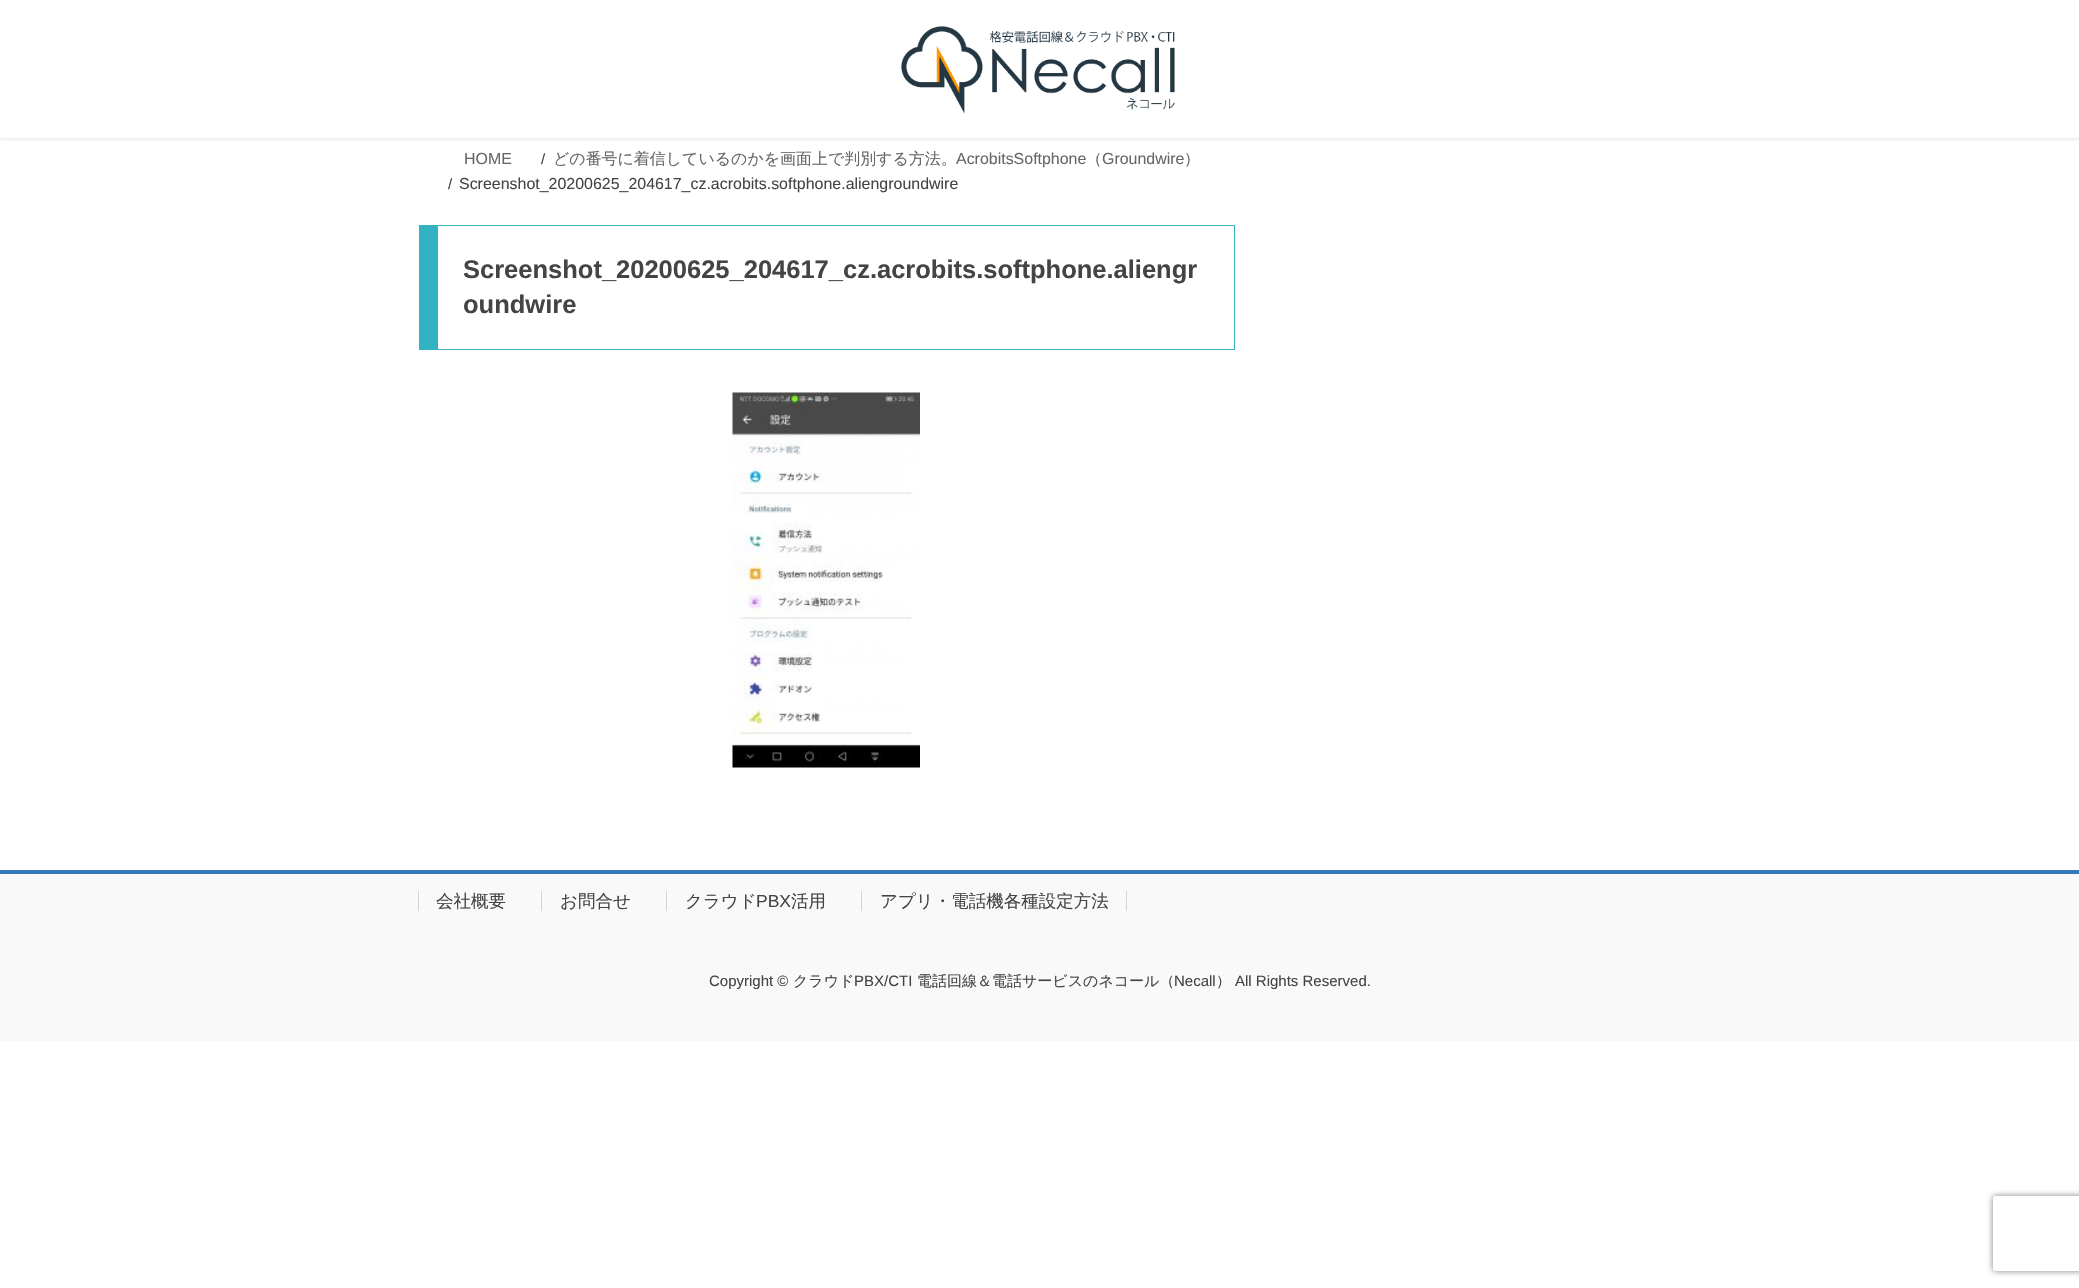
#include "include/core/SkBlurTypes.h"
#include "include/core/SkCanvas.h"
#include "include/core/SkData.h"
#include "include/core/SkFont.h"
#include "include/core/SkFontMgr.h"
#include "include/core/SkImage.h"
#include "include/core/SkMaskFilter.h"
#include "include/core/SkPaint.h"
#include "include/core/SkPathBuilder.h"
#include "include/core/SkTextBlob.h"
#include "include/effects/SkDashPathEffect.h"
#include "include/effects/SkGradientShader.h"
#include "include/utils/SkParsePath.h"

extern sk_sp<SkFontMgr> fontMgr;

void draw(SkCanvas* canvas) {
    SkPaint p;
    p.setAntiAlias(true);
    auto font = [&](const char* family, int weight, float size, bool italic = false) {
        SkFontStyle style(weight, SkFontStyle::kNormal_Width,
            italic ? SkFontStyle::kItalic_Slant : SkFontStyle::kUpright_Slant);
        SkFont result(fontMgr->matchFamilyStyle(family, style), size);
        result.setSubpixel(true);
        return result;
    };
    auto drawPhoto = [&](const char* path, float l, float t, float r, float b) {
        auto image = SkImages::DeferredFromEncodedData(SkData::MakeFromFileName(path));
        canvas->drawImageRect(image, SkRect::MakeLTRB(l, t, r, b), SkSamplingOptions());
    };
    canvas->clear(0xFFFFFFFF);
    p.setColor(0x1A000000);
    p.setMaskFilter(SkMaskFilter::MakeBlur(kNormal_SkBlurStyle, 2));
    canvas->drawRect(SkRect::MakeLTRB(0, 1, 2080, 139), p);
    p.setMaskFilter(nullptr);
    p.setColor(0xFFFFFFFF);
    canvas->drawRect(SkRect::MakeLTRB(0, 0, 2079, 138), p);
    drawPhoto("media/1.png", 901, 26, 1175, 114);
    auto font1 = font("Liberation Sans", 400, 15.95f);
    p.setColor(0xFF666666);
    canvas->drawString("HOME", 464, 164, font1, p);
    auto font2 = font("Liberation Sans", 400, 15);
    p.setColor(0xFF444444);
    canvas->drawString("/", 541, 164, font2, p);
    auto font3 = font("WenQuanYi Zen Hei", 500, 15.95f);
    p.setColor(0xFF666666);
    canvas->drawString("どの番号に着信しているのかを画面上で判別する方法。", 553, 164, font3, p);
    canvas->drawString("AcrobitsSoftphone", 956, 164, font1, p);
    canvas->drawString("（", 1086, 164, font3, p);
    canvas->drawString("Groundwire", 1102, 164, font1, p);
    canvas->drawString("）", 1184, 164, font3, p);
    p.setColor(0xFF444444);
    canvas->drawString("/", 448, 189, font2, p);
    canvas->drawString("Screenshot_20200625_204617_cz.acrobits.softphone.aliengroundwire", 459, 189, font1, p);
    {
        const struct { float l, t, r, b; SkColor color; } items[] = {
            {438, 225, 1235, 226, 0xFF33B3C1},
            {1234, 225, 1235, 350, 0xFF33B3C1},
            {438, 349, 1235, 350, 0xFF33B3C1},
            {419, 225, 438, 350, 0xFF33B3C1},
        };
        for (auto [l, t, r, b, color] : items) {
            p.setColor(color);
            canvas->drawRect(SkRect::MakeLTRB(l, t, r, b), p);
        }
    }
    auto font4 = font("Liberation Sans", 700, 25.5f);
    p.setColor(0xFF444444);
    canvas->drawString("Screenshot_20200625_204617_cz.acrobits.softphone.aliengr", 463, 278, font4, p);
    canvas->drawString("oundwire", 463, 313, font4, p);
    drawPhoto("media/2.png", 732, 392, 920, 768);
    p.setColor(0xFFF9F9F9);
    canvas->drawRect(SkRect::MakeLTRB(0, 874, 2079, 1041), p);
    p.setColor(0xFF337AB7);
    canvas->drawRect(SkRect::MakeLTRB(0, 870, 2079, 874), p);
    auto font5 = font("WenQuanYi Zen Hei", 500, 17.5f);
    p.setColor(0xFF444444);
    canvas->drawString("会社概要", 436, 907, font5, p);
    p.setColor(0xFFD4D4D4);
    canvas->drawRect(SkRect::MakeLTRB(418, 891, 419, 911), p);
    p.setColor(0xFF444444);
    canvas->drawString("お問合せ", 560, 907, font5, p);
    p.setColor(0xFFD4D4D4);
    canvas->drawRect(SkRect::MakeLTRB(541, 891, 542, 911), p);
    p.setColor(0xFF444444);
    canvas->drawString("クラウド", 685, 907, font5, p);
    p.setColor(0xFFD4D4D4);
    canvas->drawRect(SkRect::MakeLTRB(666, 891, 667, 911), p);
    auto font6 = font("Liberation Sans", 400, 17.5f);
    p.setColor(0xFF444444);
    canvas->drawString("PBX", 756, 907, font6, p);
    canvas->drawString("活用", 791, 907, font5, p);
    canvas->drawString("アプリ・電話機各種設定方法", 880, 907, font5, p);
    p.setColor(0xFFD4D4D4);
    canvas->drawRect(SkRect::MakeLTRB(1126, 891, 1127, 911), p);
    canvas->drawRect(SkRect::MakeLTRB(861, 891, 862, 911), p);
    p.setColor(0xFF444444);
    canvas->drawString("Copyright ©", 709, 986, font2, p);
    auto font7 = font("WenQuanYi Zen Hei", 500, 15);
    canvas->drawString("クラウド", 793, 986, font7, p);
    canvas->drawString("PBX/CTI", 854, 986, font2, p);
    canvas->drawString("電話回線＆電話サービスのネコール（", 917, 986, font7, p);
    canvas->drawString("Necall", 1174, 986, font2, p);
    canvas->drawString("）", 1216, 986, font7, p);
    canvas->drawString("All Rights Reserved.", 1235, 986, font2, p);
    canvas->save();
    canvas->clipPath(SkPathBuilder(SkPathFillType::kEvenOdd).moveTo(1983, 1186).lineTo(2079, 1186).lineTo(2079, 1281).lineTo(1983, 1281).close().moveTo(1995.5f, 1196).lineTo(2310.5f, 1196).cubicTo(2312, 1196, 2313, 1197, 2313, 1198.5f).lineTo(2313, 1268.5f).cubicTo(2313, 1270, 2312, 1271, 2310.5f, 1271).lineTo(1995.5f, 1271).cubicTo(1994, 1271, 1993, 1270, 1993, 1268.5f).lineTo(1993, 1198.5f).cubicTo(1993, 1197, 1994, 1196, 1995.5f, 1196).close().detach(), true);
    p.setColor(0xFF808080);
    p.setMaskFilter(SkMaskFilter::MakeBlur(kNormal_SkBlurStyle, 3));
    canvas->drawRoundRect(SkRect::MakeLTRB(1993, 1196, 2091, 1271), 2.5f, 2.5f, p);
    p.setMaskFilter(nullptr);
    canvas->restore();
}
